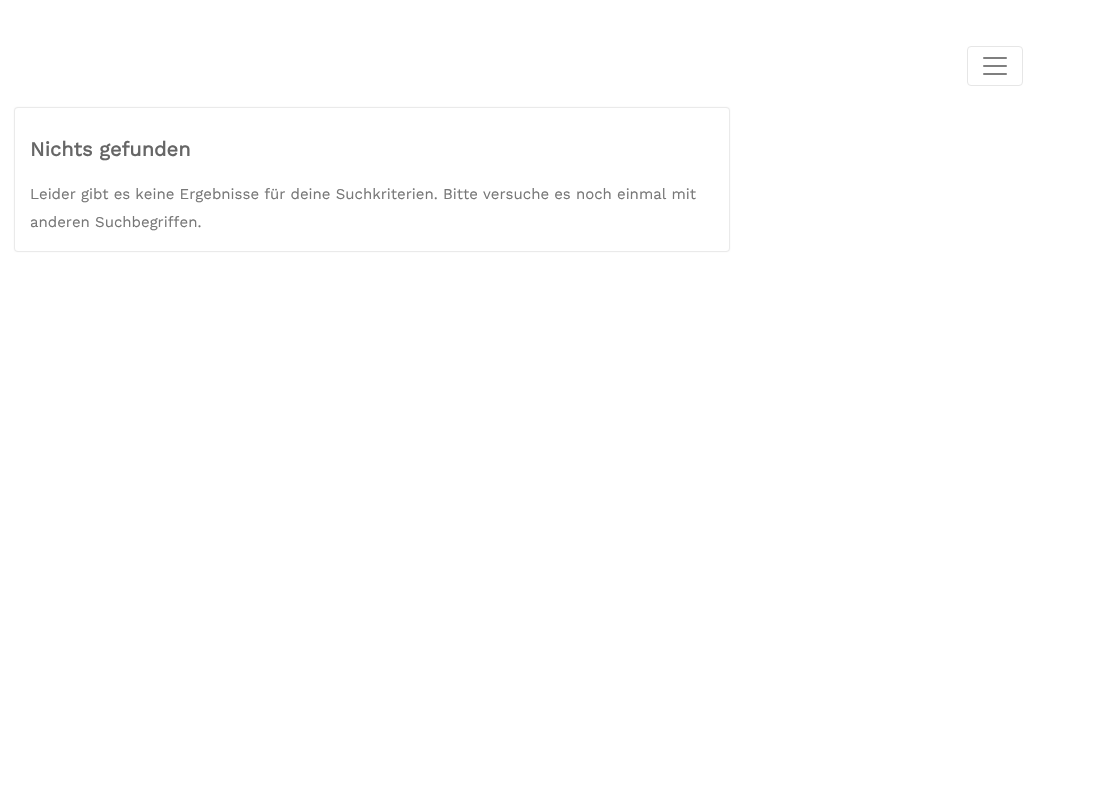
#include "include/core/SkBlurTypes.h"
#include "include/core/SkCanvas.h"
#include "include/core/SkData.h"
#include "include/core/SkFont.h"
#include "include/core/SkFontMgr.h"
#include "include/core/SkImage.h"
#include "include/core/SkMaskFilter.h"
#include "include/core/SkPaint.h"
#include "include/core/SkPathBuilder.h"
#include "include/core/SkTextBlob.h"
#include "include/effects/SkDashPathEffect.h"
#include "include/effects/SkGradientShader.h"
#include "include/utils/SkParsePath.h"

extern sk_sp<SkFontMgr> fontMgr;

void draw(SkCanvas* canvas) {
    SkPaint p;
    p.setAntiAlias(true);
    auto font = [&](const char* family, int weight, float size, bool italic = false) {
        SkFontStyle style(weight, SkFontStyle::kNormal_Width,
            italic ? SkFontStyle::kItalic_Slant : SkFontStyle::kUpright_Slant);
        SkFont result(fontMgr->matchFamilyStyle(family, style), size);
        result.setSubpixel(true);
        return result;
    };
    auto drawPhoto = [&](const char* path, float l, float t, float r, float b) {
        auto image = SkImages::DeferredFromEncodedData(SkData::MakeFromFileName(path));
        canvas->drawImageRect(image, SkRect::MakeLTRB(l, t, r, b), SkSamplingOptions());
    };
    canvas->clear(0xFFFFFFFF);
    p.setStyle(SkPaint::kStroke_Style);
    p.setStrokeWidth(1);
    p.setColor(0xFFE6E6E6);
    canvas->drawRoundRect(SkRect::MakeLTRB(967.5f, 46.5f, 1022.5f, 85.5f), 3.5f, 3.5f, p);
    drawPhoto("media/1.png", 983, 57, 1007, 75);
    p.setStyle(SkPaint::kFill_Style);
    p.setColor(0xFFE8E8E8);
    p.setMaskFilter(SkMaskFilter::MakeBlur(kNormal_SkBlurStyle, 0.5f));
    canvas->drawRoundRect(SkRect::MakeLTRB(14, 107, 730, 252), 4, 4, p);
    p.setMaskFilter(nullptr);
    p.setColor(0xFFFFFFFF);
    canvas->drawRoundRect(SkRect::MakeLTRB(15, 108, 729, 251), 3, 3, p);
    auto font1 = font("Work Sans", 700, 20);
    p.setColor(0xFF666666);
    canvas->drawString("Nichts gefunden", 30, 156, font1, p);
    auto font2 = font("Work Sans", 400, 15);
    p.setColor(0xFF777777);
    canvas->drawString("Leider gibt es keine Ergebnisse für deine Suchkriterien. Bitte versuche es noch einmal mit", 30, 199, font2, p);
    canvas->drawString("anderen Suchbegriffen.", 30, 227, font2, p);
}
